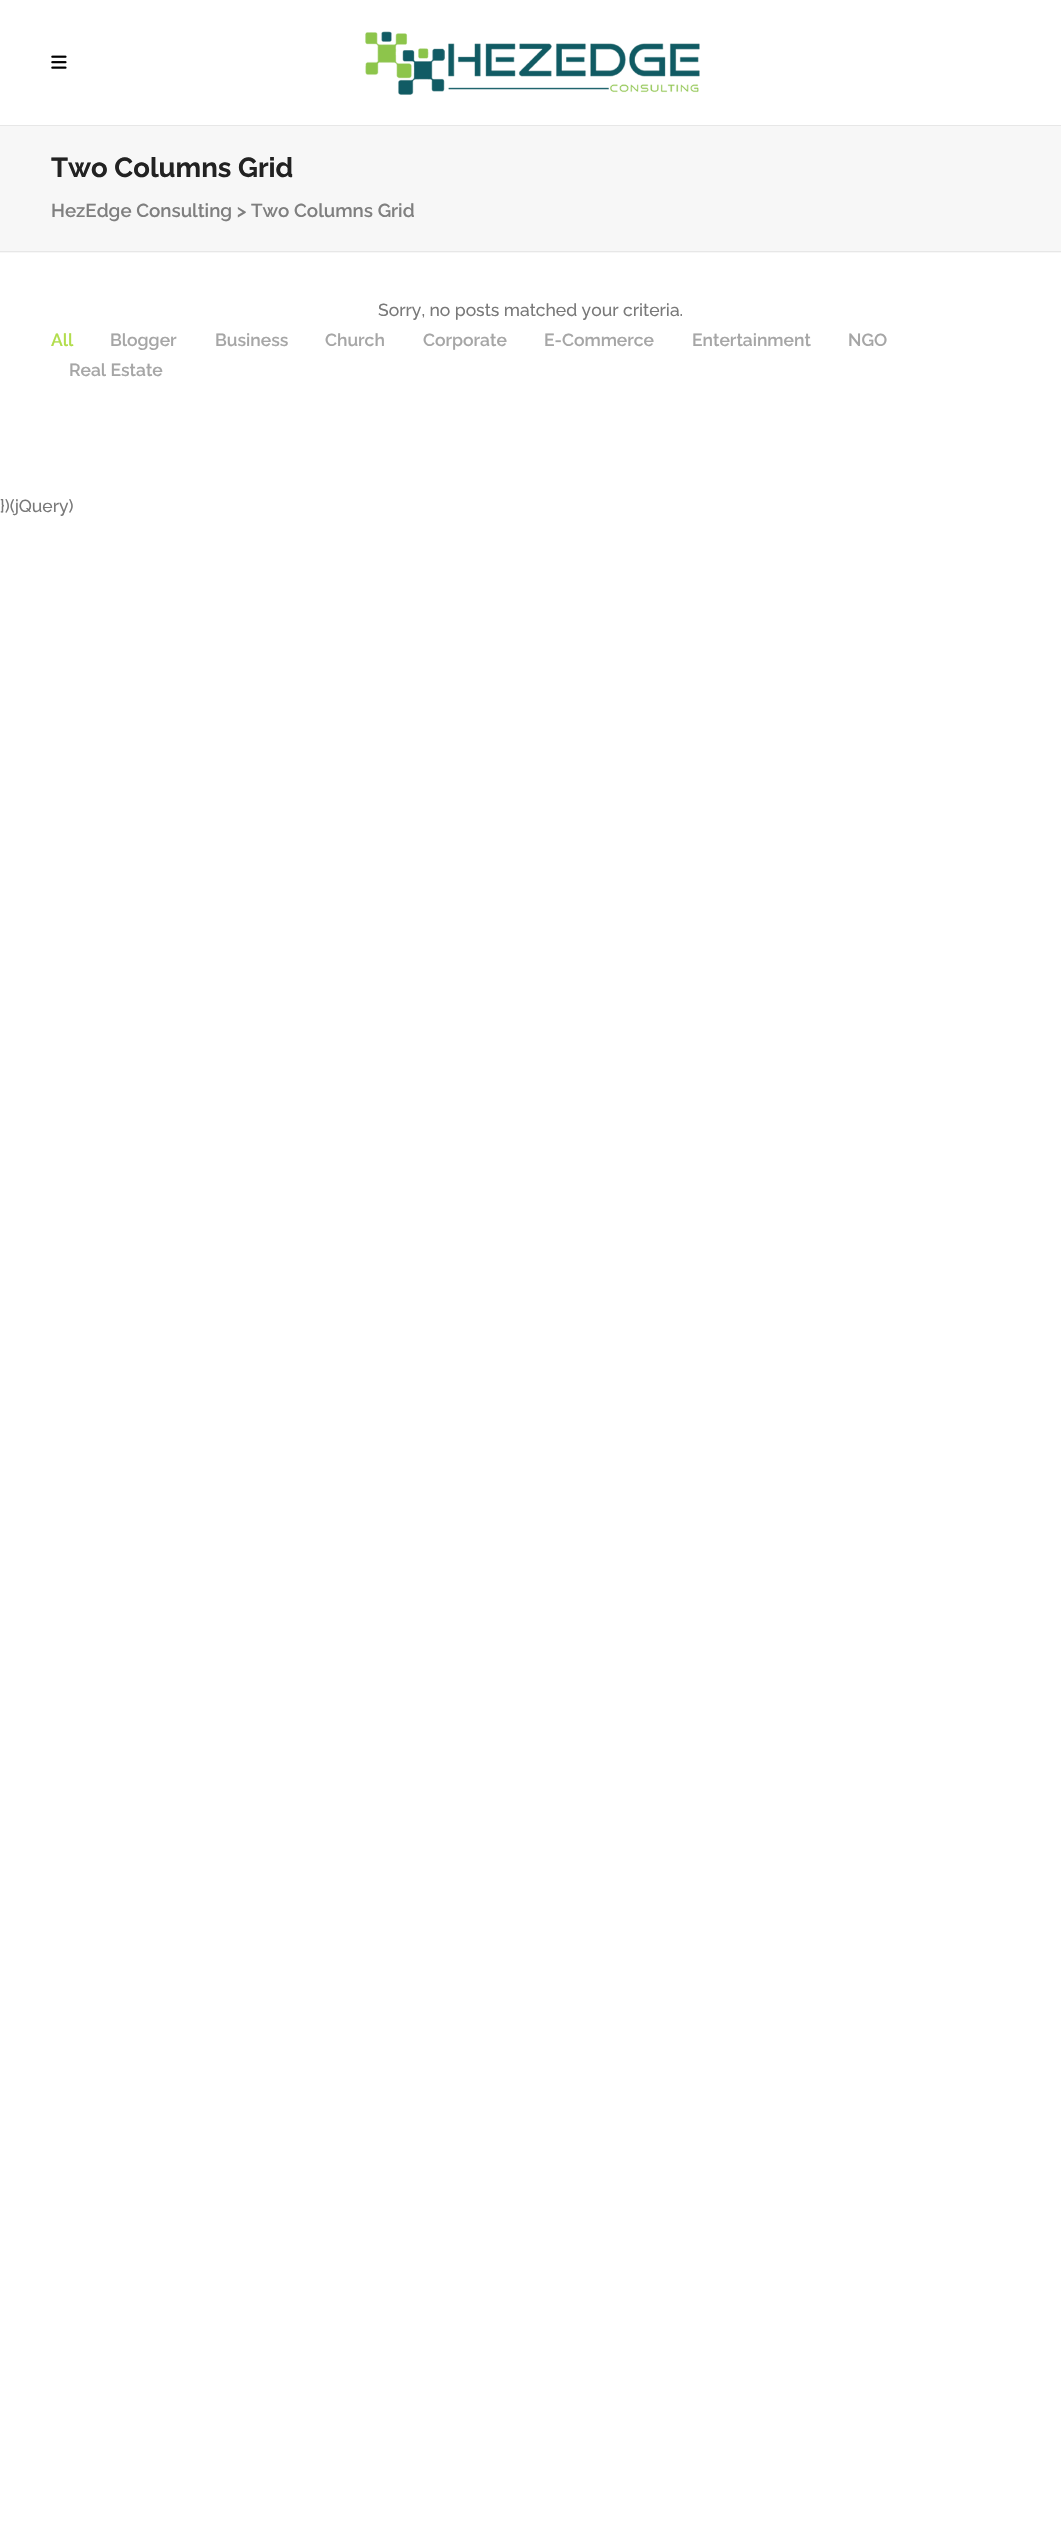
#include "include/core/SkBlurTypes.h"
#include "include/core/SkCanvas.h"
#include "include/core/SkData.h"
#include "include/core/SkFont.h"
#include "include/core/SkFontMgr.h"
#include "include/core/SkImage.h"
#include "include/core/SkMaskFilter.h"
#include "include/core/SkPaint.h"
#include "include/core/SkPathBuilder.h"
#include "include/core/SkTextBlob.h"
#include "include/effects/SkDashPathEffect.h"
#include "include/effects/SkGradientShader.h"
#include "include/utils/SkParsePath.h"

extern sk_sp<SkFontMgr> fontMgr;

void draw(SkCanvas* canvas) {
    SkPaint p;
    p.setAntiAlias(true);
    auto font = [&](const char* family, int weight, float size, bool italic = false) {
        SkFontStyle style(weight, SkFontStyle::kNormal_Width,
            italic ? SkFontStyle::kItalic_Slant : SkFontStyle::kUpright_Slant);
        SkFont result(fontMgr->matchFamilyStyle(family, style), size);
        result.setSubpixel(true);
        return result;
    };
    auto drawPhoto = [&](const char* path, float l, float t, float r, float b) {
        auto image = SkImages::DeferredFromEncodedData(SkData::MakeFromFileName(path));
        canvas->drawImageRect(image, SkRect::MakeLTRB(l, t, r, b), SkSamplingOptions());
    };
    canvas->clear(0xFFFFFFFF);
    drawPhoto("media/1.png", 51, 55, 67, 69);
    drawPhoto("media/2.png", 365, 31, 700, 95);
    {
        const struct { float l, t, r, b; SkColor color; } items[] = {
            {0, 126, 1061, 253, 0xFFF7F7F7},
            {0, 125, 1061, 126, 0xFFE7E7E7},
            {0, 251, 1061, 252, 0xFFE7E7E7},
        };
        for (auto [l, t, r, b, color] : items) {
            p.setColor(color);
            canvas->drawRect(SkRect::MakeLTRB(l, t, r, b), p);
        }
    }
    auto font1 = font("Raleway", 700, 27.5f);
    p.setColor(0xFF222222);
    canvas->drawString("Two Columns Grid", 51, 177, font1, p);
    auto font2 = font("Raleway", 600, 18.75f);
    p.setColor(0xFF7F7F7F);
    canvas->drawString("HezEdge Consulting > Two Columns Grid", 51, 217, font2, p);
    auto font3 = font("Raleway", 500, 17.5f);
    p.setColor(0xFF797979);
    canvas->drawString("Sorry, no posts matched your criteria.", 378, 316, font3, p);
    auto font4 = font("Raleway", 600, 17.5f);
    p.setColor(0xFFB2DD4C);
    canvas->drawString("All", 51, 346, font4, p);
    p.setColor(0xFFA6A6A6);
    {
        const struct { const char* s; float x, y; } items[] = {
            {"Blogger", 110, 346},
            {"Business", 215, 346},
            {"Church", 325, 346},
            {"Corporate", 423, 346},
            {"E-Commerce", 544, 346},
            {"Entertainment", 692, 346},
            {"NGO", 848, 346},
            {"Real Estate", 69, 376},
        };
        for (auto [s, x, y] : items) {
            canvas->drawString(s, x, y, font4, p);
        }
    }
    p.setColor(0xFF797979);
    canvas->drawString("})(jQuery)", 0, 512, font3, p);
}
